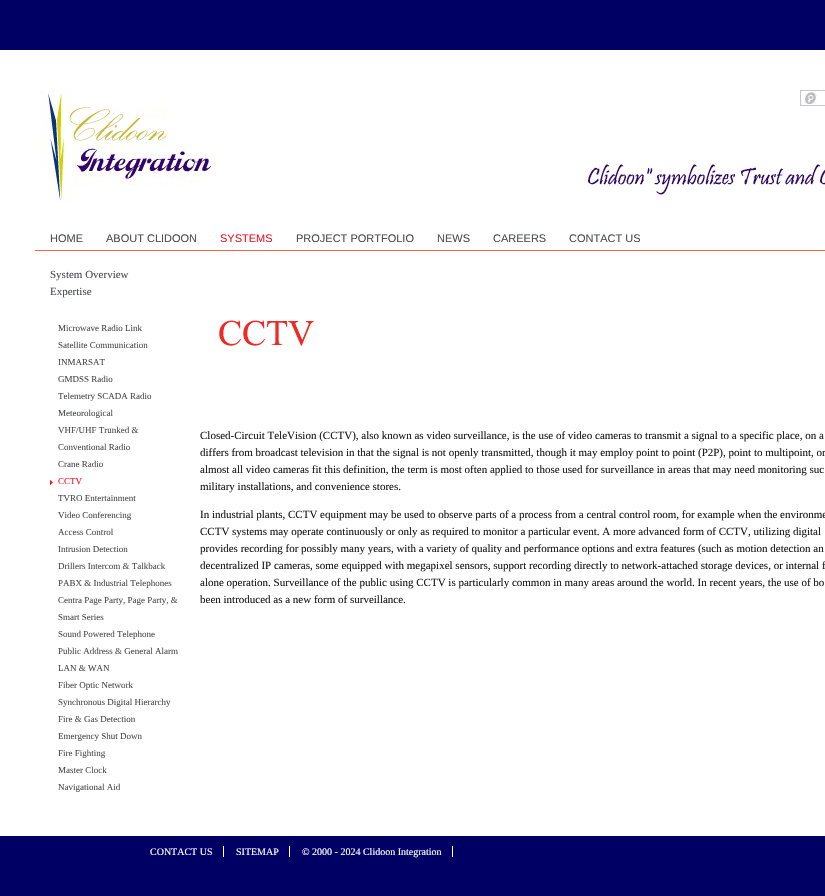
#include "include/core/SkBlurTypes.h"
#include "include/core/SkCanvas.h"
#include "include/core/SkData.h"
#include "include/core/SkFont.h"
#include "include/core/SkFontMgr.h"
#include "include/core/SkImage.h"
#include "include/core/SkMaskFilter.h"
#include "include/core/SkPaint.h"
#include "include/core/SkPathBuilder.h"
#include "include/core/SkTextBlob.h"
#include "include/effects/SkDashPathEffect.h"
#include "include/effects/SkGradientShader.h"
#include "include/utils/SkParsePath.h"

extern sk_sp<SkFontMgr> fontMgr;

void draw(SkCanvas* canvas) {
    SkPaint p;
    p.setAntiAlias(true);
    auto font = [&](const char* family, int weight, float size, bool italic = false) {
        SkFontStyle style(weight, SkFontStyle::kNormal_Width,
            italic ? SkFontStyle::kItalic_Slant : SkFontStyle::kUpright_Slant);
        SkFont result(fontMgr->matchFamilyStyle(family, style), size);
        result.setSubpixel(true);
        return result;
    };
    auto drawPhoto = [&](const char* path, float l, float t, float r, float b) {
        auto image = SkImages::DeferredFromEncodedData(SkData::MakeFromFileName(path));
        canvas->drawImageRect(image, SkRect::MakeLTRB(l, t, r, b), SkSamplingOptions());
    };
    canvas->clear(0xFF000064);
    p.setColor(0xFFFFFFFF);
    canvas->drawRect(SkRect::MakeLTRB(0, 50, 825, 836), p);
    p.setColor(0xFFF3664A);
    canvas->drawRect(SkRect::MakeLTRB(35, 250, 825, 251), p);
    drawPhoto("media/1.png", 40, 90, 825, 202);
    drawPhoto("media/2.png", 800, 90, 825, 106);
    drawPhoto("media/3.png", 805, 92, 817, 104);
    auto font1 = font("Liberation Sans", 400, 11);
    p.setColor(0xFF4C4D4F);
    canvas->drawString("HOME", 50, 242, font1, p);
    canvas->drawString("ABOUT CLIDOON", 106, 242, font1, p);
    p.setColor(0xFFED1A29);
    canvas->drawString("SYSTEMS", 220, 242, font1, p);
    p.setColor(0xFF4C4D4F);
    {
        const struct { const char* s; float x, y; } items[] = {
            {"PROJECT PORTFOLIO", 296, 242},
            {"NEWS", 437, 242},
            {"CAREERS", 493, 242},
            {"CONTACT US", 569, 242},
        };
        for (auto [s, x, y] : items) {
            canvas->drawString(s, x, y, font1, p);
        }
    }
    auto font2 = font("Liberation Serif", 400, 11);
    canvas->drawString("System Overview", 50, 278, font2, p);
    canvas->drawString("Expertise", 50, 295, font2, p);
    auto font3 = font("Liberation Serif", 400, 9);
    {
        const struct { const char* s; float x, y; } items[] = {
            {"Microwave Radio Link", 58, 331},
            {"Satellite Communication", 58, 348},
            {"INMARSAT", 58, 365},
            {"GMDSS Radio", 58, 382},
            {"Telemetry SCADA Radio", 58, 399},
            {"Meteorological", 58, 416},
            {"VHF/UHF Trunked &", 58, 433},
            {"Conventional Radio", 58, 450},
            {"Crane Radio", 58, 467},
        };
        for (auto [s, x, y] : items) {
            canvas->drawString(s, x, y, font3, p);
        }
    }
    drawPhoto("media/4.png", 50, 480, 53, 485);
    p.setColor(0xFFED1A29);
    canvas->drawString("CCTV", 58, 484, font3, p);
    p.setColor(0xFF4C4D4F);
    {
        const struct { const char* s; float x, y; } items[] = {
            {"TVRO Entertainment", 58, 501},
            {"Video Conferencing", 58, 518},
            {"Access Control", 58, 535},
            {"Intrusion Detection", 58, 552},
            {"Drillers Intercom & Talkback", 58, 569},
            {"PABX & Industrial Telephones", 58, 586},
            {"Centra Page Party, Page Party, &", 58, 603},
            {"Smart Series", 58, 620},
            {"Sound Powered Telephone", 58, 637},
            {"Public Address & General Alarm", 58, 654},
            {"LAN & WAN", 58, 671},
            {"Fiber Optic Network", 58, 688},
            {"Synchronous Digital Hierarchy", 58, 705},
            {"Fire & Gas Detection", 58, 722},
            {"Emergency Shut Down", 58, 739},
            {"Fire Fighting", 58, 756},
            {"Master Clock", 58, 773},
            {"Navigational Aid", 58, 790},
        };
        for (auto [s, x, y] : items) {
            canvas->drawString(s, x, y, font3, p);
        }
    }
    drawPhoto("media/5.png", 219, 318, 314, 346);
    p.setColor(0xFF1A1A1C);
    {
        const struct { const char* s; float x, y; } items[] = {
            {"Closed-Circuit TeleVision (CCTV), also known as video surveillance, is the use of video cameras to transmit a signal to a specific place, on a", 200, 439},
            {"differs from broadcast television in that the signal is not openly transmitted, though it may employ point to point (P2P), point to multipoint, or", 200, 456},
            {"almost all video cameras fit this definition, the term is most often applied to those used for surveillance in areas that may need monitoring suc", 200, 473},
            {"military installations, and convenience stores.", 200, 490},
            {"In industrial plants, CCTV equipment may be used to observe parts of a process from a central control room, for example when the environme", 200, 518},
            {"CCTV systems may operate continuously or only as required to monitor a particular event. A more advanced form of CCTV, utilizing digital", 200, 535},
            {"provides recording for possibly many years, with a variety of quality and performance options and extra features (such as motion detection an", 200, 552},
            {"decentralized IP cameras, some equipped with megapixel sensors, support recording directly to network-attached storage devices, or internal f", 200, 569},
            {"alone operation. Surveillance of the public using CCTV is particularly common in many areas around the world. In recent years, the use of bo", 200, 586},
            {"been introduced as a new form of surveillance.", 200, 603},
        };
        for (auto [s, x, y] : items) {
            canvas->drawString(s, x, y, font2, p);
        }
    }
    auto font4 = font("Liberation Serif", 400, 10);
    p.setColor(0xFFFFFFFF);
    canvas->drawString("CONTACT US", 150, 855, font4, p);
    canvas->drawRect(SkRect::MakeLTRB(223, 846, 224, 857), p);
    canvas->drawString("SITEMAP", 236, 855, font4, p);
    canvas->drawRect(SkRect::MakeLTRB(289, 846, 290, 857), p);
    canvas->drawString("© 2000 - 2024 Clidoon Integration", 302, 855, font4, p);
    canvas->drawRect(SkRect::MakeLTRB(452, 846, 453, 857), p);
}
